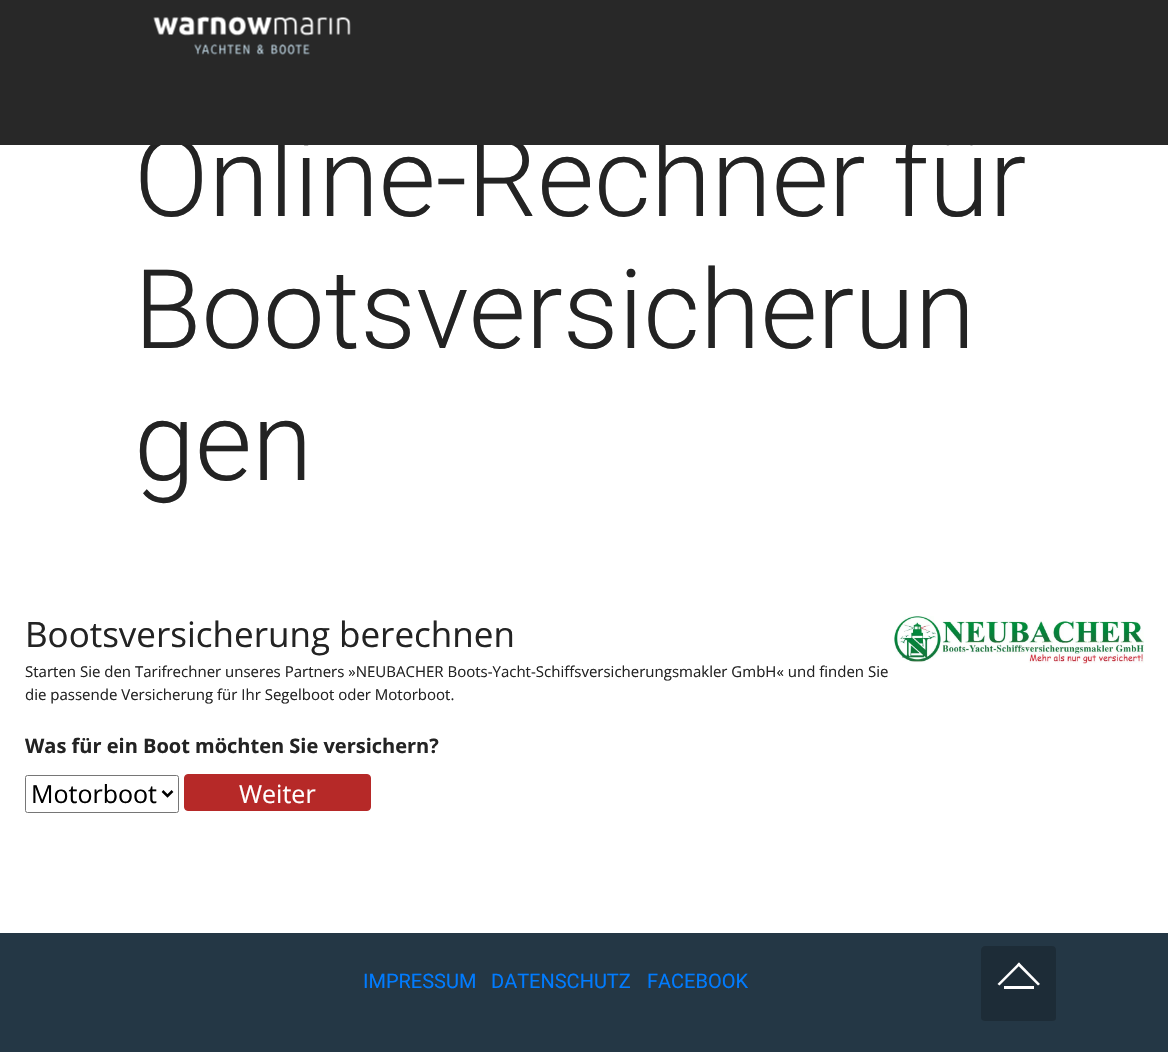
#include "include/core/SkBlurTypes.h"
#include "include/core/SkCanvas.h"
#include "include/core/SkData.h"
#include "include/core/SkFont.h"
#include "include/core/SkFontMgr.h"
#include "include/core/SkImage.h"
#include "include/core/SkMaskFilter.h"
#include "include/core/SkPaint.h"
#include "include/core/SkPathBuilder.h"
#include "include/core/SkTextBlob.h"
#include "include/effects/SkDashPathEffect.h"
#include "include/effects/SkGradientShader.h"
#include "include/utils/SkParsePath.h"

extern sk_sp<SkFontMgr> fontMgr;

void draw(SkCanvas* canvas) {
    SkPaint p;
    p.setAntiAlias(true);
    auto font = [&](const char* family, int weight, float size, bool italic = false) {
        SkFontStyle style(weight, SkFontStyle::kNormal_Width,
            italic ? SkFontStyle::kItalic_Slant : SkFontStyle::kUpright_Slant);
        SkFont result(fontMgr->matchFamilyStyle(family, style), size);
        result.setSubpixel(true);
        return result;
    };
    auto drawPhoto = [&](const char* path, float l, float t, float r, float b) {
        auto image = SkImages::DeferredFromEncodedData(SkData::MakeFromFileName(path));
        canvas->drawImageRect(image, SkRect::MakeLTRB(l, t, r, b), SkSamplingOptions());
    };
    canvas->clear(0xFFFFFFFF);
    auto font1 = font("Roboto", 300, 110);
    p.setColor(0xFF232323);
    canvas->drawString("Online-Rechner für", 134, 216, font1, p);
    p.setColor(0xFF282828);
    canvas->drawRect(SkRect::MakeLTRB(0, 0, 1168, 145), p);
    drawPhoto("media/1.png", 153, 16, 351, 55);
    p.setColor(0xFF232323);
    canvas->drawString("Bootsversicherun", 134, 348, font1, p);
    canvas->drawString("gen", 134, 480, font1, p);
    auto font2 = font("Open Sans", 400, 35);
    canvas->drawString("Bootsversicherung berechnen", 25, 647, font2, p);
    drawPhoto("media/2.png", 894, 616, 1144, 664);
    auto font3 = font("Open Sans", 400, 15);
    canvas->drawString("Starten Sie den Tarifrechner unseres Partners »NEUBACHER Boots-Yacht-Schiffsversicherungsmakler GmbH« und finden Sie", 25, 677, font3, p);
    canvas->drawString("die passende Versicherung für Ihr Segelboot oder Motorboot.", 25, 700, font3, p);
    auto font4 = font("Open Sans", 700, 20);
    canvas->drawString("Was für ein Boot möchten Sie versichern?", 25, 753, font4, p);
    p.setStyle(SkPaint::kStroke_Style);
    p.setStrokeWidth(1);
    p.setColor(0xFF767676);
    canvas->drawRoundRect(SkRect::MakeLTRB(25.5f, 775.5f, 178.5f, 812.5f), 2, 2, p);
    p.setStrokeWidth(2.5f);
    p.setColor(0xFF000000);
    canvas->drawPath(SkPathBuilder().moveTo(162.5f, 791).lineTo(167.5f, 796).lineTo(172.5f, 791).detach(), p);
    auto font5 = font("Open Sans", 400, 25);
    p.setStyle(SkPaint::kFill_Style);
    canvas->drawString("Motorboot", 31, 803, font5, p);
    p.setColor(0xFFB62928);
    canvas->drawRoundRect(SkRect::MakeLTRB(184.5f, 774.5f, 370.5f, 810.5f), 3.5f, 3.5f, p);
    p.setStyle(SkPaint::kStroke_Style);
    p.setStrokeWidth(1);
    canvas->drawRoundRect(SkRect::MakeLTRB(184.5f, 774.5f, 370.5f, 810.5f), 3.5f, 3.5f, p);
    p.setStyle(SkPaint::kFill_Style);
    p.setColor(0xFFFFFFFF);
    canvas->drawString("Weiter", 239, 803, font5, p);
    p.setColor(0xFF243745);
    canvas->drawRect(SkRect::MakeLTRB(0, 933, 1168, 1052), p);
    auto font6 = font("Roboto", 400, 20);
    p.setColor(0xFF007BFF);
    {
        const struct { const char* s; float x, y; } items[] = {
            {"IMPRESSUM", 363, 988},
            {"DATENSCHUTZ", 491, 988},
            {"FACEBOOK", 647, 988},
        };
        for (auto [s, x, y] : items) {
            canvas->drawString(s, x, y, font6, p);
        }
    }
    p.setColor(0xFF1D2C37);
    canvas->drawPath(SkPathBuilder().moveTo(1052, 1021).lineTo(985, 1021).cubicTo(983, 1021, 981, 1020, 981, 1018).lineTo(981, 950).cubicTo(981, 948, 983, 946, 985, 946).lineTo(1052, 946).cubicTo(1055, 946, 1056, 948, 1056, 950).lineTo(1056, 1018).cubicTo(1056, 1020, 1055, 1021, 1052, 1021).close().detach(), p);
    p.setColor(0xFFFFFFFF);
    canvas->drawPath(SkPathBuilder().moveTo(997.5f, 984).lineTo(1019, 962.5f).lineTo(1020.5f, 964.5f).lineTo(999.5f, 985.5f).close().detach(), p);
    canvas->drawPath(SkPathBuilder().moveTo(1017, 964.5f).lineTo(1019, 962.5f).lineTo(1040, 984).lineTo(1038, 985.5f).close().detach(), p);
    canvas->drawRect(SkRect::MakeLTRB(1004, 986, 1034, 989), p);
}
